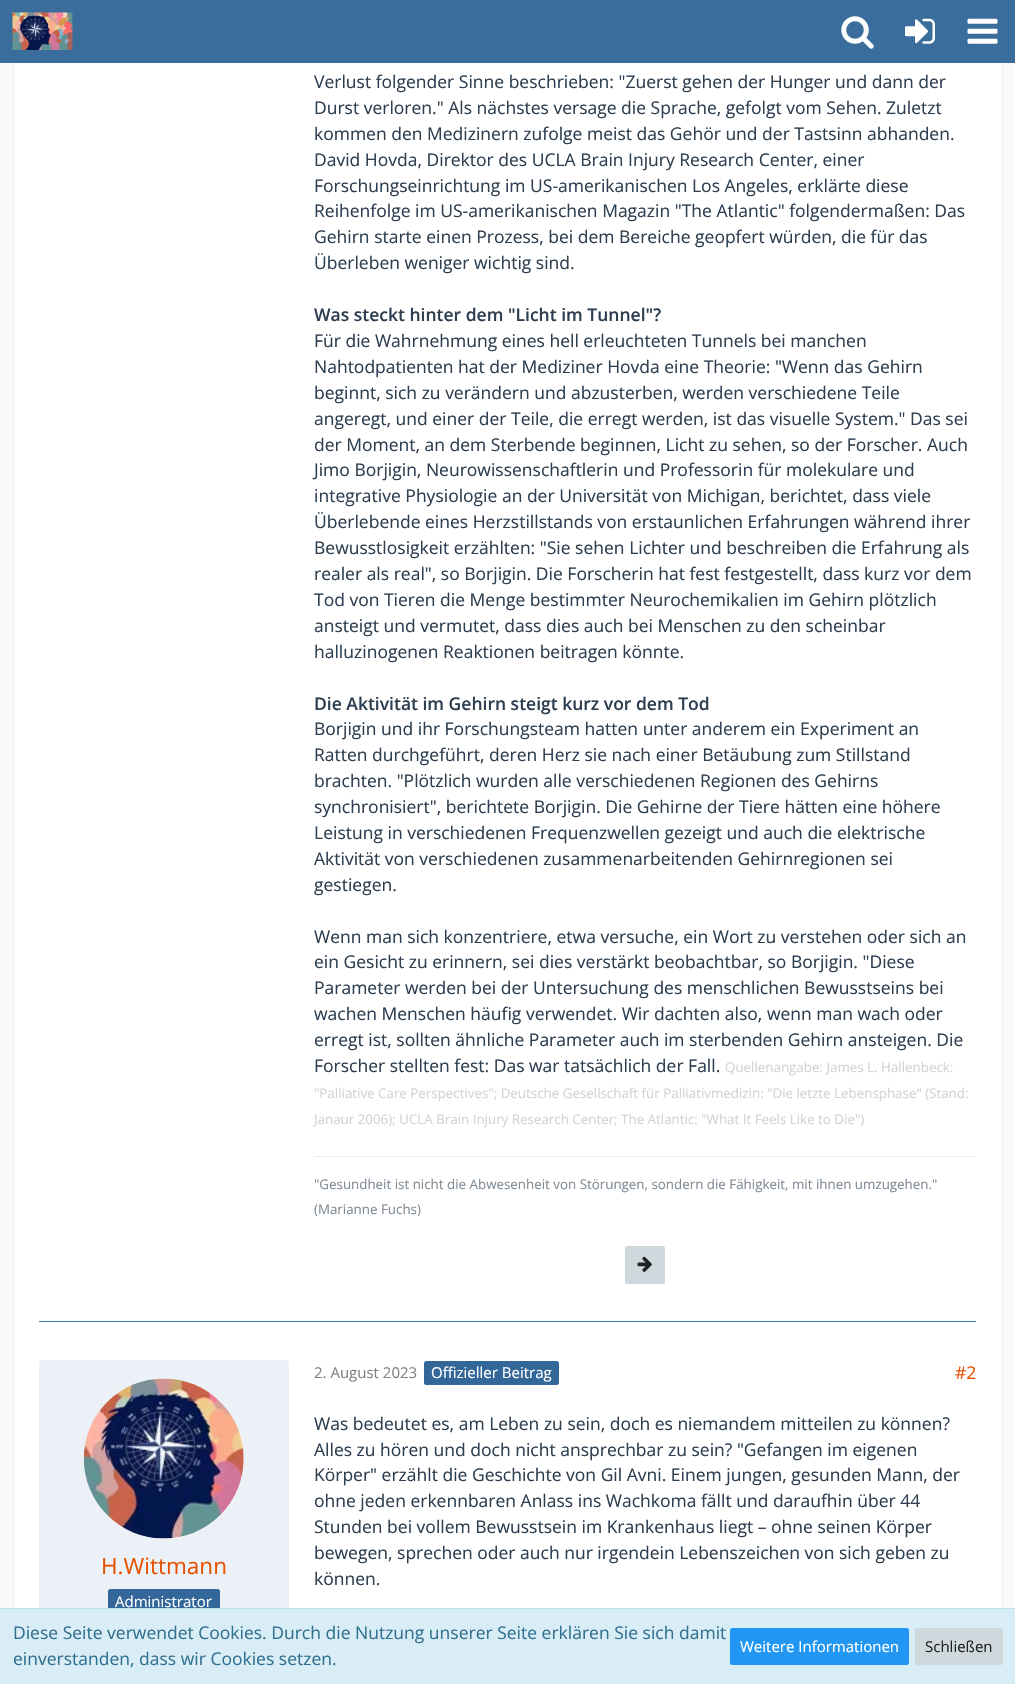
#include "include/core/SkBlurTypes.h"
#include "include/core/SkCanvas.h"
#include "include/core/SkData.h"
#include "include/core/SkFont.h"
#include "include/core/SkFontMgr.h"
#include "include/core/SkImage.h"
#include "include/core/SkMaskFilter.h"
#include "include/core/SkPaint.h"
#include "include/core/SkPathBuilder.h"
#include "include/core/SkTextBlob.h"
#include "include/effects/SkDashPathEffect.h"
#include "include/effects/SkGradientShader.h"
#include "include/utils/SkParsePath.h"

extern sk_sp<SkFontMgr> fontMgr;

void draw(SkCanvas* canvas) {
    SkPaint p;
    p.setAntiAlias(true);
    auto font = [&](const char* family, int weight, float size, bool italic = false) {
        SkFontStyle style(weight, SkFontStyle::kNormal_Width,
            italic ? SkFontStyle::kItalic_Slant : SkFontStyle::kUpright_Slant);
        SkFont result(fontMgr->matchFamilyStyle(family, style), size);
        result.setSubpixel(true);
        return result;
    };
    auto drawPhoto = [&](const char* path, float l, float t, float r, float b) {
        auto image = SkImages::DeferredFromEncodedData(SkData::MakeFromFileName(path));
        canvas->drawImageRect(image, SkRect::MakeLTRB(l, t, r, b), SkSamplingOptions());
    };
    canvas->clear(0xFFFAFAFA);
    p.setColor(0xFFFFFFFF);
    canvas->drawRect(SkRect::MakeLTRB(14, 63, 1002, 1608), p);
    p.setStyle(SkPaint::kStroke_Style);
    p.setStrokeWidth(1);
    p.setColor(0xFFECF1F7);
    canvas->drawRect(SkRect::MakeLTRB(13.5f, -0.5f, 1002.5f, 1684.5f), p);
    p.setStyle(SkPaint::kFill_Style);
    p.setColor(0xFF3A6D9C);
    canvas->drawRect(SkRect::MakeLTRB(0, 0, 1015, 63), p);
    drawPhoto("media/1.png", 12, 12, 73, 50);
    drawPhoto("media/2.png", 841, 16, 874, 49);
    drawPhoto("media/3.png", 905, 18, 935, 44);
    drawPhoto("media/4.png", 967, 18, 998, 44);
    p.setColor(0xFF4179AD);
    canvas->drawRect(SkRect::MakeLTRB(39, 1321, 976, 1322), p);
    auto font1 = font("Open Sans", 400, 17.5f);
    p.setColor(0xFF2C3E50);
    {
        const struct { const char* s; float x, y; } items[] = {
            {"Verlust folgender Sinne beschrieben: \"Zuerst gehen der Hunger und dann der", 314, 88},
            {"Durst verloren.\" Als nächstes versage die Sprache, gefolgt vom Sehen. Zuletzt", 314, 114},
            {"kommen den Medizinern zufolge meist das Gehör und der Tastsinn abhanden.", 314, 140},
            {"David Hovda, Direktor des UCLA Brain Injury Research Center, einer", 314, 166},
            {"Forschungseinrichtung im US-amerikanischen Los Angeles, erklärte diese", 314, 192},
            {"Reihenfolge im US-amerikanischen Magazin \"The Atlantic\" folgendermaßen: Das", 314, 217},
            {"Gehirn starte einen Prozess, bei dem Bereiche geopfert würden, die für das", 314, 243},
            {"Überleben weniger wichtig sind.", 314, 269},
        };
        for (auto [s, x, y] : items) {
            canvas->drawString(s, x, y, font1, p);
        }
    }
    auto font2 = font("Open Sans", 600, 17.5f);
    canvas->drawString("Was steckt hinter dem \"Licht im Tunnel\"?", 314, 321, font2, p);
    {
        const struct { const char* s; float x, y; } items[] = {
            {"Für die Wahrnehmung eines hell erleuchteten Tunnels bei manchen", 314, 347},
            {"Nahtodpatienten hat der Mediziner Hovda eine Theorie: \"Wenn das Gehirn", 314, 373},
            {"beginnt, sich zu verändern und abzusterben, werden verschiedene Teile", 314, 399},
            {"angeregt, und einer der Teile, die erregt werden, ist das visuelle System.\" Das sei", 314, 425},
            {"der Moment, an dem Sterbende beginnen, Licht zu sehen, so der Forscher. Auch", 314, 451},
            {"Jimo Borjigin, Neurowissenschaftlerin und Professorin für molekulare und", 314, 476},
            {"integrative Physiologie an der Universität von Michigan, berichtet, dass viele", 314, 502},
            {"Überlebende eines Herzstillstands von erstaunlichen Erfahrungen während ihrer", 314, 528},
            {"Bewusstlosigkeit erzählten: \"Sie sehen Lichter und beschreiben die Erfahrung als", 314, 554},
            {"realer als real\", so Borjigin. Die Forscherin hat fest festgestellt, dass kurz vor dem", 314, 580},
            {"Tod von Tieren die Menge bestimmter Neurochemikalien im Gehirn plötzlich", 314, 606},
            {"ansteigt und vermutet, dass dies auch bei Menschen zu den scheinbar", 314, 632},
            {"halluzinogenen Reaktionen beitragen könnte.", 314, 658},
        };
        for (auto [s, x, y] : items) {
            canvas->drawString(s, x, y, font1, p);
        }
    }
    canvas->drawString("Die Aktivität im Gehirn steigt kurz vor dem Tod", 314, 710, font2, p);
    {
        const struct { const char* s; float x, y; } items[] = {
            {"Borjigin und ihr Forschungsteam hatten unter anderem ein Experiment an", 314, 735},
            {"Ratten durchgeführt, deren Herz sie nach einer Betäubung zum Stillstand", 314, 761},
            {"brachten. \"Plötzlich wurden alle verschiedenen Regionen des Gehirns", 314, 787},
            {"synchronisiert\", berichtete Borjigin. Die Gehirne der Tiere hätten eine höhere", 314, 813},
            {"Leistung in verschiedenen Frequenzwellen gezeigt und auch die elektrische", 314, 839},
            {"Aktivität von verschiedenen zusammenarbeitenden Gehirnregionen sei", 314, 865},
            {"gestiegen.", 314, 891},
            {"Wenn man sich konzentriere, etwa versuche, ein Wort zu verstehen oder sich an", 314, 943},
            {"ein Gesicht zu erinnern, sei dies verstärkt beobachtbar, so Borjigin. \"Diese", 314, 968},
            {"Parameter werden bei der Untersuchung des menschlichen Bewusstseins bei", 314, 994},
            {"wachen Menschen häufig verwendet. Wir dachten also, wenn man wach oder", 314, 1020},
            {"erregt ist, sollten ähnliche Parameter auch im sterbenden Gehirn ansteigen. Die", 314, 1046},
            {"Forscher stellten fest: Das war tatsächlich der Fall.", 314, 1072},
        };
        for (auto [s, x, y] : items) {
            canvas->drawString(s, x, y, font1, p);
        }
    }
    auto font3 = font("Open Sans", 400, 13.35f);
    p.setColor(0xFFD3D3D3);
    {
        const struct { const char* s; float x, y; } items[] = {
            {"Quellenangabe: James L. Hallenbeck:", 725, 1072},
            {"\"Palliative Care Perspectives\"; Deutsche Gesellschaft für Palliativmedizin: \"Die letzte Lebensphase\" (Stand:", 314, 1098},
            {"Janaur 2006); UCLA Brain Injury Research Center; The Atlantic: \"What It Feels Like to Die\")", 314, 1124},
        };
        for (auto [s, x, y] : items) {
            canvas->drawString(s, x, y, font3, p);
        }
    }
    p.setColor(0xFFECECEC);
    canvas->drawRect(SkRect::MakeLTRB(314, 1156, 976, 1157), p);
    p.setColor(0xFF808B96);
    canvas->drawString("\"Gesundheit ist nicht die Abwesenheit von Störungen, sondern die Fähigkeit, mit ihnen umzugehen.\"", 314, 1189, font3, p);
    canvas->drawString("(Marianne Fuchs)", 314, 1214, font3, p);
    p.setColor(0xFFCFD8DC);
    canvas->drawRoundRect(SkRect::MakeLTRB(625, 1246, 665, 1284), 2.5f, 2.5f, p);
    drawPhoto("media/5.png", 637, 1256, 652, 1272);
    p.setColor(0xFFECF1F7);
    canvas->drawRoundRect(SkRect::MakeLTRB(39, 1360, 289, 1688), 4, 4, p);
    p.setColor(0xFFFFFFFF);
    canvas->drawCircle(164, 1459, 80, p);
    drawPhoto("media/6.png", 83, 1378, 244, 1539);
    auto font4 = font("Open Sans", 400, 22.5f);
    p.setColor(0xFFE65100);
    canvas->drawString("H.Wittmann", 101, 1574, font4, p);
    p.setColor(0xFF336699);
    canvas->drawRoundRect(SkRect::MakeLTRB(108, 1589, 220, 1614), 2.5f, 2.5f, p);
    auto font5 = font("Open Sans", 400, 15);
    p.setColor(0xFFFFFFFF);
    canvas->drawString("Administrator", 115, 1607, font5, p);
    p.setColor(0xFF7D8287);
    canvas->drawString("2. August 2023", 314, 1378, font5, p);
    p.setColor(0xFF336699);
    canvas->drawRoundRect(SkRect::MakeLTRB(424, 1361, 559, 1385), 2.5f, 2.5f, p);
    p.setColor(0xFFFFFFFF);
    canvas->drawString("Offizieller Beitrag", 431, 1378, font5, p);
    p.setColor(0xFFE65100);
    canvas->drawString("#2", 955, 1379, font1, p);
    p.setColor(0xFF2C3E50);
    {
        const struct { const char* s; float x, y; } items[] = {
            {"Was bedeutet es, am Leben zu sein, doch es niemandem mitteilen zu können?", 314, 1430},
            {"Alles zu hören und doch nicht ansprechbar zu sein? \"Gefangen im eigenen", 314, 1456},
            {"Körper\" erzählt die Geschichte von Gil Avni. Einem jungen, gesunden Mann, der", 314, 1481},
            {"ohne jeden erkennbaren Anlass ins Wachkoma fällt und daraufhin über 44", 314, 1507},
            {"Stunden bei vollem Bewusstsein im Krankenhaus liegt – ohne seinen Körper", 314, 1533},
            {"bewegen, sprechen oder auch nur irgendein Lebenszeichen von sich geben zu", 314, 1559},
            {"können.", 314, 1585},
        };
        for (auto [s, x, y] : items) {
            canvas->drawString(s, x, y, font1, p);
        }
    }
    p.setColor(0xFFD9EDF7);
    canvas->drawRect(SkRect::MakeLTRB(0, 1609, 1015, 1684), p);
    p.setColor(0xFFBCDFF1);
    canvas->drawRect(SkRect::MakeLTRB(0, 1608, 1015, 1609), p);
    p.setColor(0xFF31708F);
    canvas->drawString("Diese Seite verwendet Cookies. Durch die Nutzung unserer Seite erklären Sie sich damit", 13, 1639, font1, p);
    canvas->drawString("einverstanden, dass wir Cookies setzen.", 13, 1665, font1, p);
    p.setColor(0xFF2196F3);
    canvas->drawRoundRect(SkRect::MakeLTRB(730, 1628, 909, 1665), 2.5f, 2.5f, p);
    p.setColor(0xFFFFFFFF);
    canvas->drawString("Weitere Informationen", 740, 1652, font5, p);
    p.setColor(0xFFCFD8DC);
    canvas->drawRoundRect(SkRect::MakeLTRB(915, 1628, 1003, 1665), 2.5f, 2.5f, p);
    p.setColor(0xFF212121);
    canvas->drawString("Schließen", 925, 1652, font5, p);
}
